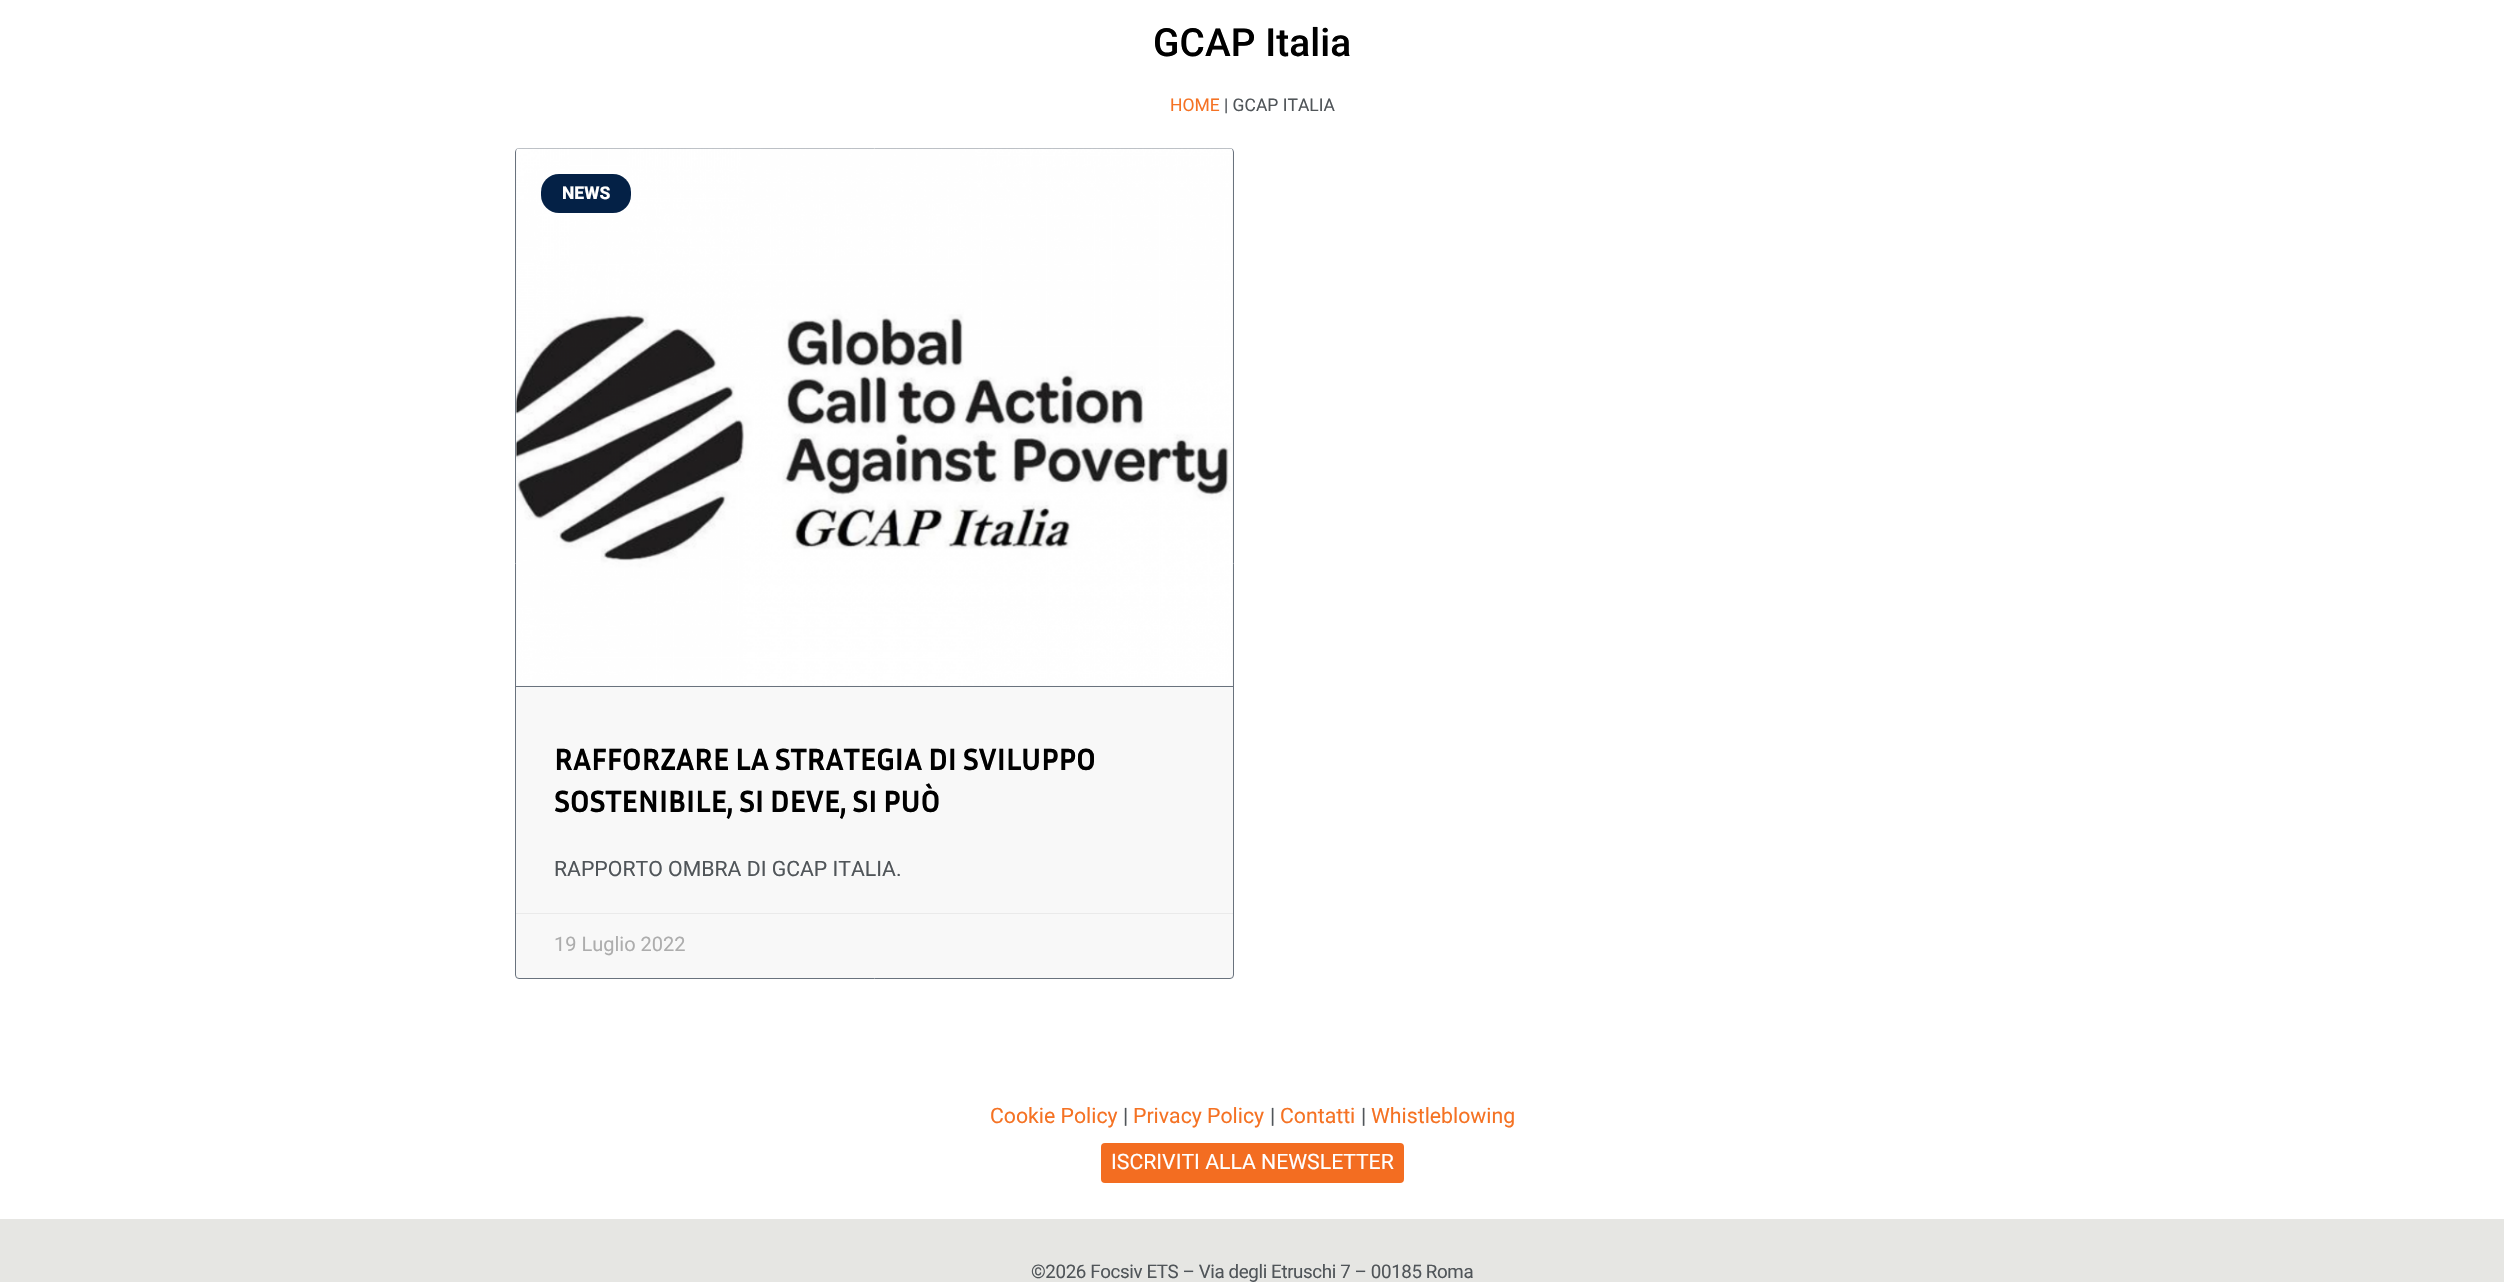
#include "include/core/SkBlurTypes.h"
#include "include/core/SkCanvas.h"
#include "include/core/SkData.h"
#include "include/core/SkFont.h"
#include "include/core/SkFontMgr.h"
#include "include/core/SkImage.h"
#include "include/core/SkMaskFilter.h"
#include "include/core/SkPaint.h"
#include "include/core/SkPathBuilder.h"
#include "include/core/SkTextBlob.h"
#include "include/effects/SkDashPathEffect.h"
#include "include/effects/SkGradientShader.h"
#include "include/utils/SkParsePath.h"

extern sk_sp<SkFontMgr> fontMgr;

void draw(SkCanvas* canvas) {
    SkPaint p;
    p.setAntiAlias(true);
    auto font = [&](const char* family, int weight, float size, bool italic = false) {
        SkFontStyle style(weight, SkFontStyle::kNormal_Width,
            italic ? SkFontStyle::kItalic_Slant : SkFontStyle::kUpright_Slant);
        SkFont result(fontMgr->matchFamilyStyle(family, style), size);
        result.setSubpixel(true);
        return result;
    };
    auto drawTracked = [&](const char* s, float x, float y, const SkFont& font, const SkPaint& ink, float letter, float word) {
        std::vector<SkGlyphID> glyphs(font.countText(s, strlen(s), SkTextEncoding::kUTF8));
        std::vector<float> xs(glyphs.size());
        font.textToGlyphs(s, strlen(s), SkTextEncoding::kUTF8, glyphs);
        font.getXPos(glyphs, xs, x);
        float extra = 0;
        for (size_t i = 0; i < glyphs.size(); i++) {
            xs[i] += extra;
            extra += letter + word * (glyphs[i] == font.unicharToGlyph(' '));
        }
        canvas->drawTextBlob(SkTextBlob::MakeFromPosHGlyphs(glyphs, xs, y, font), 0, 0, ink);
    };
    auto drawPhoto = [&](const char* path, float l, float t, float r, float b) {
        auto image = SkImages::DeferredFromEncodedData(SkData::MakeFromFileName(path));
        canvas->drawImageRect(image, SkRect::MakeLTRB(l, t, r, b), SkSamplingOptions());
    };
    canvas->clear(0xFFFFFFFF);
    auto font1 = font("Roboto", 500, 38.75f);
    p.setColor(0xFF000000);
    drawTracked("GCAP Italia", 1153, 56, font1, p, 0.1f, 0);
    auto font2 = font("Roboto", 400, 17.5f);
    p.setColor(0xFFF57223);
    canvas->drawString("HOME", 1170, 111, font2, p);
    p.setColor(0xFF505559);
    canvas->drawString("| GCAP ITALIA", 1224, 111, font2, p);
    p.setColor(0xFFF8F8F8);
    canvas->drawRoundRect(SkRect::MakeLTRB(515.5f, 148.5f, 1233.5f, 978.5f), 3.5f, 3.5f, p);
    p.setStyle(SkPaint::kStroke_Style);
    p.setStrokeWidth(1);
    p.setColor(0xFF69727D);
    canvas->drawRoundRect(SkRect::MakeLTRB(515.5f, 148.5f, 1233.5f, 978.5f), 3.5f, 3.5f, p);
    p.setStyle(SkPaint::kFill_Style);
    canvas->drawRect(SkRect::MakeLTRB(516, 686, 1233, 687), p);
    drawPhoto("media/1.png", 516, 148, 1233, 686);
    p.setColor(0xFF042146);
    canvas->drawRoundRect(SkRect::MakeLTRB(541, 174, 631, 213), 18, 18, p);
    auto font3 = font("Roboto", 800, 17.5f);
    p.setColor(0xFFFFFFFF);
    canvas->drawString("NEWS", 562, 199, font3, p);
    auto font4 = font("Inria Sans", 700, 31.25f);
    p.setColor(0xFF000000);
    drawTracked("RAFFORZARE LA STRATEGIA DI SVILUPPO", 554, 770, font4, p, -0.38f, 0);
    drawTracked("SOSTENIBILE, SI DEVE, SI PUÒ", 554, 812, font4, p, -0.38f, 0);
    auto font5 = font("Roboto", 400, 21.25f);
    p.setColor(0xFF505559);
    canvas->drawString("RAPPORTO OMBRA DI GCAP ITALIA.", 554, 876, font5, p);
    p.setColor(0xFFEAEAEA);
    canvas->drawRect(SkRect::MakeLTRB(516, 913, 1233, 914), p);
    auto font6 = font("Roboto", 400, 20);
    p.setColor(0xFFADADAD);
    canvas->drawString("19 Luglio 2022", 554, 951, font6, p);
    p.setColor(0xFFF57223);
    canvas->drawString("Cookie Policy", 990, 1123, font5, p);
    p.setColor(0xFF505559);
    canvas->drawString("|", 1123, 1123, font5, p);
    p.setColor(0xFFF57223);
    canvas->drawString("Privacy Policy", 1133, 1123, font5, p);
    p.setColor(0xFF505559);
    canvas->drawString("|", 1270, 1123, font5, p);
    p.setColor(0xFFF57223);
    canvas->drawString("Contatti", 1280, 1123, font5, p);
    p.setColor(0xFF505559);
    canvas->drawString("|", 1361, 1123, font5, p);
    p.setColor(0xFFF57223);
    canvas->drawString("Whistleblowing", 1371, 1123, font5, p);
    p.setColor(0xFFF36D21);
    canvas->drawRoundRect(SkRect::MakeLTRB(1101, 1143, 1404, 1183), 4, 4, p);
    p.setColor(0xFFFFFFFF);
    canvas->drawString("ISCRIVITI ALLA NEWSLETTER", 1111, 1169, font5, p);
    p.setColor(0xFFE6E6E3);
    canvas->drawRect(SkRect::MakeLTRB(0, 1219, 2504, 1282), p);
    auto font7 = font("Roboto", 400, 18.75f);
    p.setColor(0xFF505559);
    drawTracked("©2026 Focsiv ETS – Via degli Etruschi 7 – 00185 Roma", 1031, 1278, font7, p, -0.38f, 0);
}
